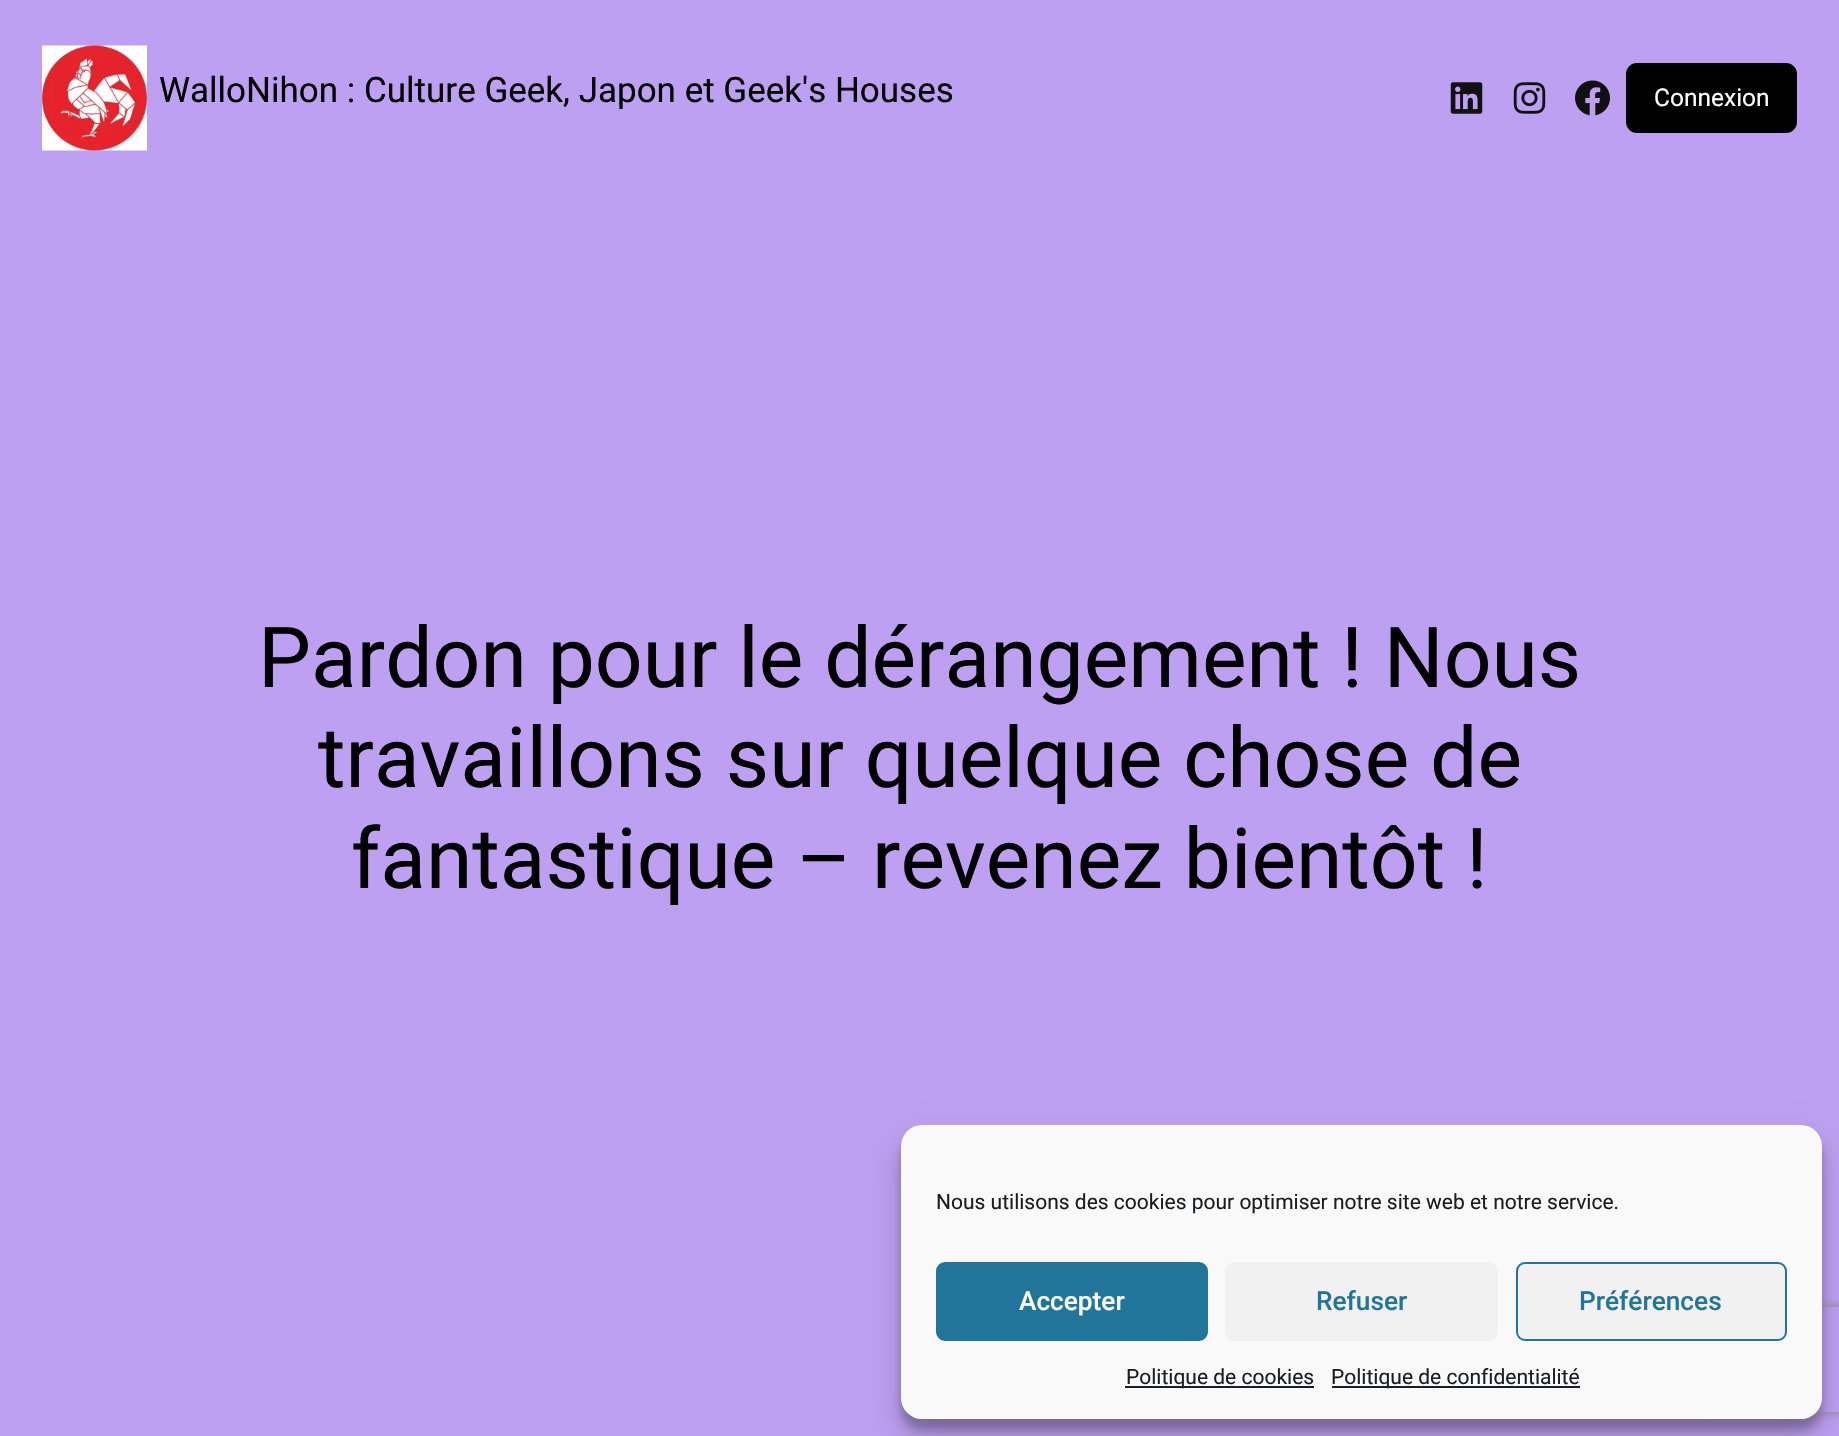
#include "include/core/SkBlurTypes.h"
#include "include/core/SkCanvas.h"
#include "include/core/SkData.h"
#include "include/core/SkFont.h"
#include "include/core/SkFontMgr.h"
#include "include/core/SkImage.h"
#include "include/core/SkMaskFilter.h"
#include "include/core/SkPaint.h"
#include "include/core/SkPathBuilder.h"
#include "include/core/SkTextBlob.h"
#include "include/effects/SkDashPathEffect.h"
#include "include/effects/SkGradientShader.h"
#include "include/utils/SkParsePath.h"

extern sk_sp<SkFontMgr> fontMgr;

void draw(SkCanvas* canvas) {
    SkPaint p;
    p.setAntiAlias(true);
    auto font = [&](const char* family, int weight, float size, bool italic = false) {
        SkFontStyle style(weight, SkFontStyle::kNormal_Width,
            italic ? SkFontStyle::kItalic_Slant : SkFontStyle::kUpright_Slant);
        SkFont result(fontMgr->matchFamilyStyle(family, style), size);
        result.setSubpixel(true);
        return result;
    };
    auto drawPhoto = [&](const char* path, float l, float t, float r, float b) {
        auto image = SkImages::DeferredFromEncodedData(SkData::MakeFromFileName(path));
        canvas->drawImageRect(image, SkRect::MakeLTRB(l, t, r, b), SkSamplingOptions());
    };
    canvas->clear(0xFFBEA0F2);
    drawPhoto("media/1.png", 42, 45, 147, 151);
    auto font1 = font("Roboto", 400, 35);
    p.setColor(0xFF000000);
    canvas->drawString("WalloNihon : Culture Geek, Japon et Geek's Houses", 159, 102, font1, p);
    drawPhoto("media/2.png", 1450, 82, 1483, 114);
    drawPhoto("media/3.png", 1513, 82, 1546, 114);
    drawPhoto("media/4.png", 1575, 80, 1610, 116);
    canvas->drawRoundRect(SkRect::MakeLTRB(1626, 63, 1797, 133), 11, 11, p);
    auto font2 = font("Roboto", 400, 24.5f);
    p.setColor(0xFFFFFFFF);
    canvas->drawString("Connexion", 1654, 106, font2, p);
    auto font3 = font("Roboto", 400, 84);
    p.setColor(0xFF000000);
    {
        const struct { const char* s; float x, y; } items[] = {
            {"Pardon pour le dérangement ! Nous", 258, 687},
            {"travaillons sur quelque chose de", 318, 787},
            {"fantastique – revenez bientôt !", 351, 888},
        };
        for (auto [s, x, y] : items) {
            canvas->drawString(s, x, y, font3, p);
        }
    }
    p.setColor(0x3B000000);
    p.setMaskFilter(SkMaskFilter::MakeBlur(kNormal_SkBlurStyle, 5));
    canvas->drawRoundRect(SkRect::MakeLTRB(901, 1136, 1822, 1430), 21, 21, p);
    p.setMaskFilter(nullptr);
    p.setColor(0x30000000);
    p.setMaskFilter(SkMaskFilter::MakeBlur(kNormal_SkBlurStyle, 17.5f));
    canvas->drawRoundRect(SkRect::MakeLTRB(901, 1143, 1822, 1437), 21, 21, p);
    p.setMaskFilter(nullptr);
    canvas->save();
    canvas->clipPath(SkPathBuilder(SkPathFillType::kEvenOdd).moveTo(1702, 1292).lineTo(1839, 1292).lineTo(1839, 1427).lineTo(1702, 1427).close().moveTo(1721, 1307).lineTo(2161, 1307).cubicTo(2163, 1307, 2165, 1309, 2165, 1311).lineTo(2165, 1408).cubicTo(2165, 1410, 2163, 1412, 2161, 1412).lineTo(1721, 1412).cubicTo(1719, 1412, 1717, 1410, 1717, 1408).lineTo(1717, 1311).cubicTo(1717, 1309, 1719, 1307, 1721, 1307).close().detach(), true);
    p.setColor(0xFF808080);
    p.setMaskFilter(SkMaskFilter::MakeBlur(kNormal_SkBlurStyle, 4.5f));
    canvas->drawRoundRect(SkRect::MakeLTRB(1717, 1307, 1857, 1412), 4, 4, p);
    p.setMaskFilter(nullptr);
    canvas->restore();
    p.setColor(0xFFF9F9F9);
    canvas->drawRoundRect(SkRect::MakeLTRB(901, 1125, 1822, 1419), 21, 21, p);
    auto font4 = font("Roboto", 400, 21);
    p.setColor(0xFF191E23);
    canvas->drawString("Nous utilisons des cookies pour optimiser notre site web et notre service.", 936, 1209, font4, p);
    p.setColor(0xFF21759B);
    canvas->drawRoundRect(SkRect::MakeLTRB(937, 1263, 1207, 1340), 8, 8, p);
    p.setStyle(SkPaint::kStroke_Style);
    p.setStrokeWidth(2);
    canvas->drawRoundRect(SkRect::MakeLTRB(937, 1263, 1207, 1340), 8, 8, p);
    auto font5 = font("Roboto", 500, 26.25f);
    p.setStyle(SkPaint::kFill_Style);
    p.setColor(0xFFFFFFFF);
    canvas->drawString("Accepter", 1019, 1310, font5, p);
    p.setColor(0xFFF1F1F1);
    canvas->drawRoundRect(SkRect::MakeLTRB(1225, 1262, 1498, 1341), 9, 9, p);
    p.setColor(0xFF21759B);
    canvas->drawString("Refuser", 1316, 1310, font5, p);
    p.setColor(0xFFF1F1F1);
    canvas->drawRoundRect(SkRect::MakeLTRB(1517, 1263, 1786, 1340), 8, 8, p);
    p.setStyle(SkPaint::kStroke_Style);
    p.setColor(0xFF21759B);
    canvas->drawRoundRect(SkRect::MakeLTRB(1517, 1263, 1786, 1340), 8, 8, p);
    p.setStyle(SkPaint::kFill_Style);
    canvas->drawString("Préférences", 1579, 1310, font5, p);
    p.setColor(0xFF191E23);
    canvas->drawRect(SkRect::MakeLTRB(1125, 1386, 1314, 1388), p);
    canvas->drawString("Politique de cookies", 1126, 1384, font4, p);
    canvas->drawRect(SkRect::MakeLTRB(1332, 1386, 1580, 1388), p);
    canvas->drawString("Politique de confidentialité", 1331, 1384, font4, p);
}
